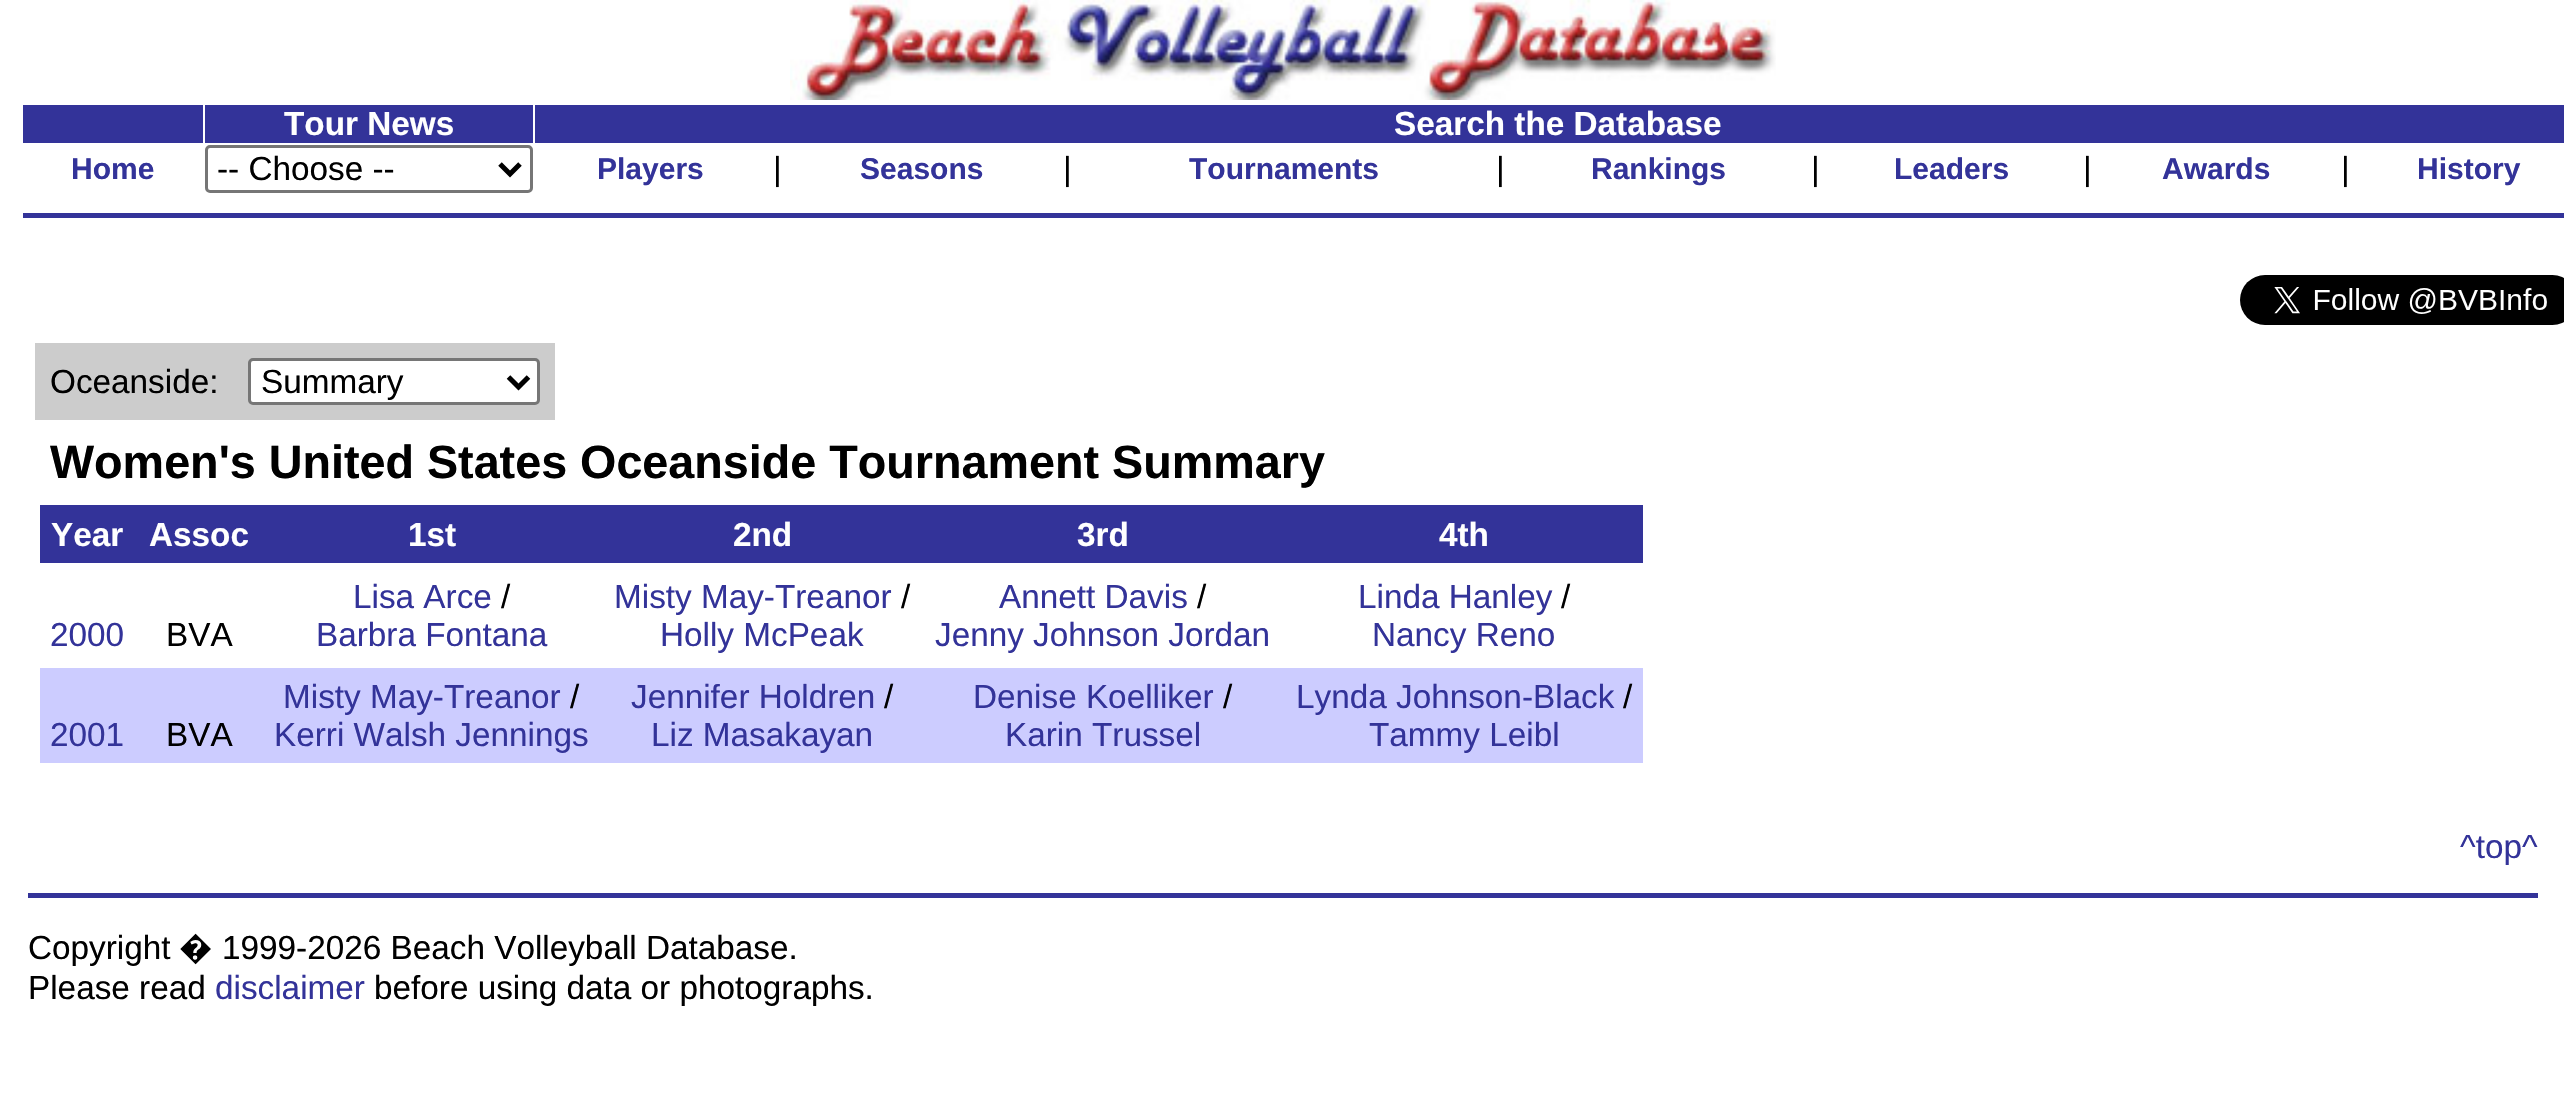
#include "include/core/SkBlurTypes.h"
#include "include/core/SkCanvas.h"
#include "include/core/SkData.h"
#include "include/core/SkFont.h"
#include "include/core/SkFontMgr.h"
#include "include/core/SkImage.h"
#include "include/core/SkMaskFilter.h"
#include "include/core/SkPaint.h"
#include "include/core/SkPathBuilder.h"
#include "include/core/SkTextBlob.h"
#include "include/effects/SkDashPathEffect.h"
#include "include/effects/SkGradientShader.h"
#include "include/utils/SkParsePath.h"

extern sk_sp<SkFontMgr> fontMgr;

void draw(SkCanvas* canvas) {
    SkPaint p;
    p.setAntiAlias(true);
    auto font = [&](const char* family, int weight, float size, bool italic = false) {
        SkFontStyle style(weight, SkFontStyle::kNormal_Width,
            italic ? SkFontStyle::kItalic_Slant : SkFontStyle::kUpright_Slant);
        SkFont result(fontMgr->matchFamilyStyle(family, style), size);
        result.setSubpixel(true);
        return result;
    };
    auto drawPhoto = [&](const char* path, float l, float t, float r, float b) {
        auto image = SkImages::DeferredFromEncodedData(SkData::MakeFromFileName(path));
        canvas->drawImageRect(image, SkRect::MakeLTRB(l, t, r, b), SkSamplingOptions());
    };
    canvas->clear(0xFFFFFFFF);
    drawPhoto("media/1.png", 790, 0, 1776, 100);
    p.setColor(0xFF333399);
    canvas->drawRect(SkRect::MakeLTRB(23, 105, 203, 143), p);
    canvas->drawRect(SkRect::MakeLTRB(205, 105, 533, 143), p);
    auto font1 = font("Liberation Sans", 700, 33.3f);
    p.setColor(0xFFFFFFFF);
    canvas->drawString("Tour News", 284, 135, font1, p);
    p.setColor(0xFF333399);
    canvas->drawRect(SkRect::MakeLTRB(535, 105, 2564, 143), p);
    p.setColor(0xFFFFFFFF);
    canvas->drawString("Search the Database", 1394, 135, font1, p);
    auto font2 = font("Liberation Sans", 700, 30);
    p.setColor(0xFF333399);
    canvas->drawString("Home", 71, 179, font2, p);
    p.setStyle(SkPaint::kStroke_Style);
    p.setStrokeWidth(3);
    p.setColor(0xFF767676);
    canvas->drawRoundRect(SkRect::MakeLTRB(206.5f, 146.5f, 531.5f, 191.5f), 3.5f, 3.5f, p);
    p.setStrokeWidth(5);
    p.setColor(0xFF000000);
    canvas->drawPath(SkPathBuilder().moveTo(500, 164).lineTo(510, 174).lineTo(520, 164).detach(), p);
    auto font3 = font("Liberation Sans", 400, 33.3f);
    p.setStyle(SkPaint::kFill_Style);
    canvas->drawString("-- Choose --", 217, 180, font3, p);
    p.setColor(0xFF333399);
    canvas->drawString("Players", 597, 179, font2, p);
    p.setColor(0xFF000000);
    canvas->drawString("|", 773, 180, font3, p);
    p.setColor(0xFF333399);
    canvas->drawString("Seasons", 860, 179, font2, p);
    p.setColor(0xFF000000);
    canvas->drawString("|", 1063, 180, font3, p);
    p.setColor(0xFF333399);
    canvas->drawString("Tournaments", 1189, 179, font2, p);
    p.setColor(0xFF000000);
    canvas->drawString("|", 1496, 180, font3, p);
    p.setColor(0xFF333399);
    canvas->drawString("Rankings", 1591, 179, font2, p);
    p.setColor(0xFF000000);
    canvas->drawString("|", 1811, 180, font3, p);
    p.setColor(0xFF333399);
    canvas->drawString("Leaders", 1894, 179, font2, p);
    p.setColor(0xFF000000);
    canvas->drawString("|", 2083, 180, font3, p);
    p.setColor(0xFF333399);
    canvas->drawString("Awards", 2162, 179, font2, p);
    p.setColor(0xFF000000);
    canvas->drawString("|", 2341, 180, font3, p);
    p.setColor(0xFF333399);
    canvas->drawString("History", 2417, 179, font2, p);
    canvas->drawRect(SkRect::MakeLTRB(23, 213, 2564, 218), p);
    drawPhoto("media/2.png", 2240, 275, 2564, 325);
    p.setColor(0xFFCCCCCC);
    canvas->drawRect(SkRect::MakeLTRB(35, 343, 555, 420), p);
    p.setColor(0xFF000000);
    canvas->drawString("Oceanside:", 50, 393, font3, p);
    p.setColor(0xFFFFFFFF);
    canvas->drawRoundRect(SkRect::MakeLTRB(249.5f, 359.5f, 538.5f, 403.5f), 3.5f, 3.5f, p);
    p.setStyle(SkPaint::kStroke_Style);
    p.setStrokeWidth(3);
    p.setColor(0xFF767676);
    canvas->drawRoundRect(SkRect::MakeLTRB(249.5f, 359.5f, 538.5f, 403.5f), 3.5f, 3.5f, p);
    p.setStrokeWidth(5);
    p.setColor(0xFF000000);
    canvas->drawPath(SkPathBuilder().moveTo(508.5f, 377).lineTo(518.5f, 387).lineTo(528.5f, 377).detach(), p);
    p.setStyle(SkPaint::kFill_Style);
    canvas->drawString("Summary", 261, 393, font3, p);
    auto font4 = font("Liberation Sans", 700, 46.7f);
    canvas->drawString("Women's United States Oceanside Tournament Summary", 50, 478, font4, p);
    p.setColor(0xFF333399);
    canvas->drawRect(SkRect::MakeLTRB(40, 505, 1643, 563), p);
    p.setColor(0xFFFFFFFF);
    {
        const struct { const char* s; float x, y; } items[] = {
            {"Year", 51, 546},
            {"Assoc", 149, 546},
            {"1st", 408, 546},
            {"2nd", 733, 546},
            {"3rd", 1077, 546},
            {"4th", 1439, 546},
        };
        for (auto [s, x, y] : items) {
            canvas->drawString(s, x, y, font1, p);
        }
    }
    p.setColor(0xFF333399);
    canvas->drawString("2000", 50, 646, font3, p);
    p.setColor(0xFF000000);
    canvas->drawString("BVA", 166, 646, font3, p);
    p.setColor(0xFF333399);
    canvas->drawString("Lisa Arce", 353, 608, font3, p);
    p.setColor(0xFF000000);
    canvas->drawString("/", 501, 608, font3, p);
    p.setColor(0xFF333399);
    canvas->drawString("Barbra Fontana", 316, 646, font3, p);
    canvas->drawString("Misty May-Treanor", 614, 608, font3, p);
    p.setColor(0xFF000000);
    canvas->drawString("/", 901, 608, font3, p);
    p.setColor(0xFF333399);
    canvas->drawString("Holly McPeak", 660, 646, font3, p);
    canvas->drawString("Annett Davis", 999, 608, font3, p);
    p.setColor(0xFF000000);
    canvas->drawString("/", 1197, 608, font3, p);
    p.setColor(0xFF333399);
    canvas->drawString("Jenny Johnson Jordan", 935, 646, font3, p);
    canvas->drawString("Linda Hanley", 1358, 608, font3, p);
    p.setColor(0xFF000000);
    canvas->drawString("/", 1561, 608, font3, p);
    p.setColor(0xFF333399);
    canvas->drawString("Nancy Reno", 1372, 646, font3, p);
    p.setColor(0xFFCCCCFF);
    canvas->drawRect(SkRect::MakeLTRB(40, 668, 1643, 763), p);
    p.setColor(0xFF333399);
    canvas->drawString("2001", 50, 746, font3, p);
    p.setColor(0xFF000000);
    canvas->drawString("BVA", 166, 746, font3, p);
    p.setColor(0xFF333399);
    canvas->drawString("Misty May-Treanor", 283, 708, font3, p);
    p.setColor(0xFF000000);
    canvas->drawString("/", 570, 708, font3, p);
    p.setColor(0xFF333399);
    canvas->drawString("Kerri Walsh Jennings", 274, 746, font3, p);
    canvas->drawString("Jennifer Holdren", 631, 708, font3, p);
    p.setColor(0xFF000000);
    canvas->drawString("/", 884, 708, font3, p);
    p.setColor(0xFF333399);
    canvas->drawString("Liz Masakayan", 651, 746, font3, p);
    canvas->drawString("Denise Koelliker", 973, 708, font3, p);
    p.setColor(0xFF000000);
    canvas->drawString("/", 1223, 708, font3, p);
    p.setColor(0xFF333399);
    canvas->drawString("Karin Trussel", 1005, 746, font3, p);
    canvas->drawString("Lynda Johnson-Black", 1296, 708, font3, p);
    p.setColor(0xFF000000);
    canvas->drawString("/", 1623, 708, font3, p);
    p.setColor(0xFF333399);
    canvas->drawString("Tammy Leibl", 1369, 746, font3, p);
    canvas->drawString("^top^", 2460, 858, font3, p);
    canvas->drawRect(SkRect::MakeLTRB(28, 893, 2538, 898), p);
    p.setColor(0xFF000000);
    canvas->drawString("Copyright", 28, 959, font3, p);
    auto font5 = font("Noto Sans", 400, 33.3f);
    canvas->drawString("�", 179, 959, font5, p);
    canvas->drawString("1999-2026 Beach Volleyball Database.", 222, 959, font3, p);
    canvas->drawString("Please read", 28, 999, font3, p);
    p.setColor(0xFF333399);
    canvas->drawString("disclaimer", 215, 999, font3, p);
    p.setColor(0xFF000000);
    canvas->drawString("before using data or photographs.", 374, 999, font3, p);
}
